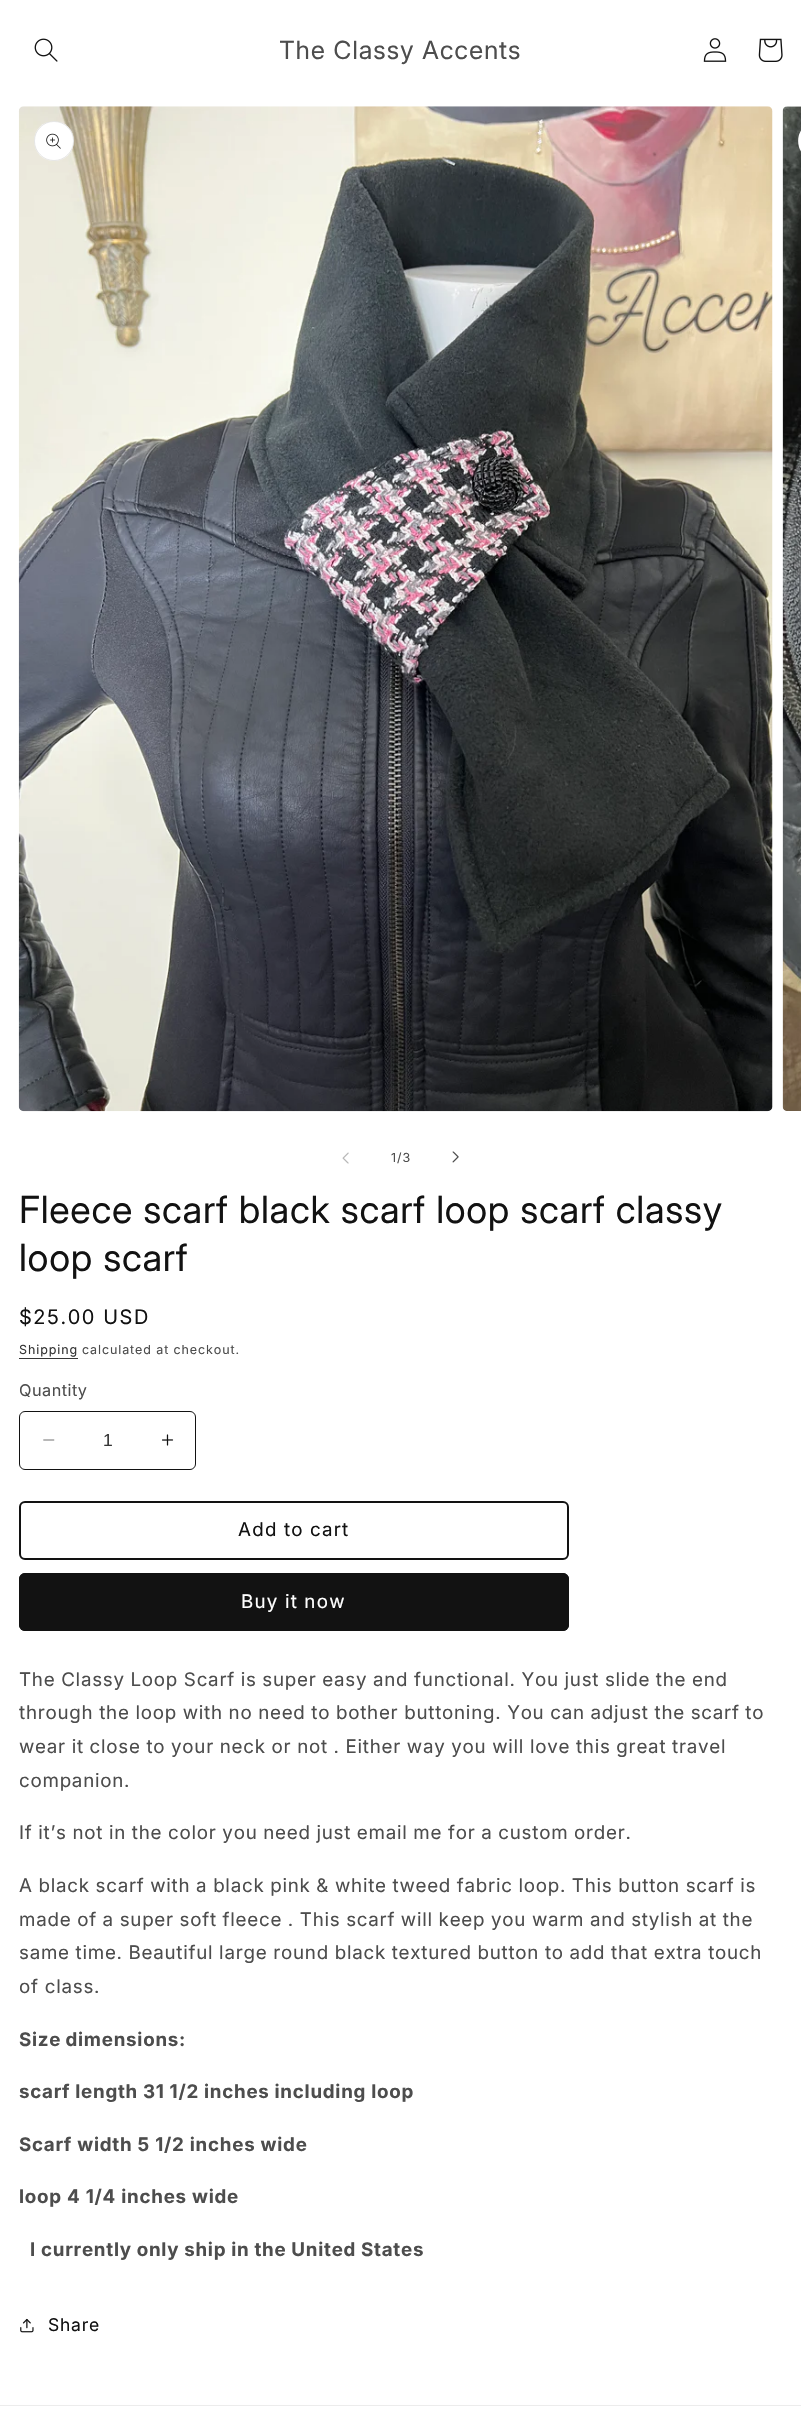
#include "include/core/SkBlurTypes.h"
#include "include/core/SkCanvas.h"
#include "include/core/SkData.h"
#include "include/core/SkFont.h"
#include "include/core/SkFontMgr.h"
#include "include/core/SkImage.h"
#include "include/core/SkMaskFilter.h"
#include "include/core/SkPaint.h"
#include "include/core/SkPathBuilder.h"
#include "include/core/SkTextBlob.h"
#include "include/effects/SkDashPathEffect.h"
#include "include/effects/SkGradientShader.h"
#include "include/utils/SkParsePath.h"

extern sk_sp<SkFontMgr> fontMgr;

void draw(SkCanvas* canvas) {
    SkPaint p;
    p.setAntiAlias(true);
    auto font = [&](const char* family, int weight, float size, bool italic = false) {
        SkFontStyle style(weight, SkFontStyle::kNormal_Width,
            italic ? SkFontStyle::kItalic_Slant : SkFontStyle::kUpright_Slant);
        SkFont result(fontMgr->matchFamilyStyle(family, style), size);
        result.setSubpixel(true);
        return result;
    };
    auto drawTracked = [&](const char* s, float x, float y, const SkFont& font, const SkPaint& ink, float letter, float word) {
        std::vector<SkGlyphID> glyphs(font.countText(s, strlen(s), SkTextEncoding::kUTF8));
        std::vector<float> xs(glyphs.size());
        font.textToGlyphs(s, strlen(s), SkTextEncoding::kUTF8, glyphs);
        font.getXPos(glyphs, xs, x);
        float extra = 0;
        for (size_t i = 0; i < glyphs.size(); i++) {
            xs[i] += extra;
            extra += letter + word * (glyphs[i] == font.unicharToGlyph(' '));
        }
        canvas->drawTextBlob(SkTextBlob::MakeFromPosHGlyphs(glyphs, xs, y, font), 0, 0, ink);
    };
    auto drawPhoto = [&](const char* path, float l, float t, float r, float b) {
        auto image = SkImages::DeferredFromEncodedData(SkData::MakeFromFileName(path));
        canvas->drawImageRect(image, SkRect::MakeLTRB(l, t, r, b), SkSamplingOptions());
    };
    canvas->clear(0xFFFFFFFF);
    drawPhoto("media/1.png", 34, 38, 58, 62);
    auto font1 = font("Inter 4", 400, 25);
    p.setColor(0xFF4D4D4D);
    drawTracked("The Classy Accents", 279, 59, font1, p, 0.75f, 0);
    drawPhoto("media/2.png", 703, 38, 727, 62);
    drawPhoto("media/3.png", 758, 38, 783, 62);
    drawPhoto("media/4.png", 18, 106, 773, 1112);
    p.setColor(0xFFFFFFFF);
    canvas->drawCircle(54, 141, 20, p);
    p.setStyle(SkPaint::kStroke_Style);
    p.setStrokeWidth(1);
    p.setColor(0x1A121212);
    canvas->drawCircle(54, 141, 19.5f, p);
    drawPhoto("media/5.png", 46, 133, 61, 149);
    drawPhoto("media/6.png", 782, 106, 801, 1111);
    p.setStyle(SkPaint::kFill_Style);
    p.setColor(0xFFFFFFFF);
    canvas->drawPath(SkPathBuilder().moveTo(818, 121).lineTo(801, 121).lineTo(801, 161).lineTo(818, 161).cubicTo(807, 161, 798, 152, 798, 141).cubicTo(798, 130, 807, 121, 818, 121).close().detach(), p);
    p.setStyle(SkPaint::kStroke_Style);
    p.setColor(0x1A121212);
    canvas->drawRoundRect(SkRect::MakeLTRB(798.5f, 121.5f, 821.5f, 160.5f), 19.5f, 19.5f, p);
    drawPhoto("media/7.png", 342, 1152, 349, 1164);
    auto font2 = font("Inter", 400, 12.5f);
    p.setStyle(SkPaint::kFill_Style);
    p.setColor(0xFF4D4D4D);
    drawTracked("1/3", 391, 1162, font2, p, 0.9f, 0);
    drawPhoto("media/8.png", 452, 1151, 459, 1163);
    auto font3 = font("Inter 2", 400, 37.5f);
    p.setColor(0xFF121212);
    drawTracked("Fleece scarf black scarf loop scarf classy", 19, 1223, font3, p, 0.75f, 0);
    drawTracked("loop scarf", 19, 1271, font3, p, 0.75f, 0);
    auto font4 = font("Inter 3", 400, 20);
    drawTracked("$25.00 USD", 19, 1324, font4, p, 1.6f, 0);
    p.setColor(0xFF363636);
    drawTracked("Shipping", 19, 1354, font2, p, 0.9f, 0);
    canvas->drawRect(SkRect::MakeLTRB(19, 1358, 78, 1359), p);
    p.setColor(0xFF4D4D4D);
    drawTracked("calculated at checkout.", 82, 1354, font2, p, 0.9f, 0);
    auto font5 = font("Inter", 400, 16.25f);
    drawTracked("Quantity", 19, 1396, font5, p, 0.5f, 0);
    drawPhoto("media/9.png", 43, 1439, 55, 1441);
    drawPhoto("media/10.png", 162, 1434, 174, 1446);
    p.setStyle(SkPaint::kStroke_Style);
    p.setColor(0xFF121212);
    canvas->drawRoundRect(SkRect::MakeLTRB(19.5f, 1411.5f, 195.5f, 1469.5f), 5.5f, 5.5f, p);
    auto font6 = font("Liberation Sans", 400, 17.5f);
    p.setStyle(SkPaint::kFill_Style);
    p.setColor(0xFF363636);
    canvas->drawString("1", 103, 1446, font6, p);
    p.setStyle(SkPaint::kStroke_Style);
    p.setStrokeWidth(2);
    p.setColor(0xFF121212);
    canvas->drawRoundRect(SkRect::MakeLTRB(20, 1502, 568, 1559), 5, 5, p);
    auto font7 = font("Inter", 400, 18.75f);
    p.setStyle(SkPaint::kFill_Style);
    drawTracked("Add to cart", 238, 1536, font7, p, 1.25f, -0.25f);
    canvas->drawRoundRect(SkRect::MakeLTRB(19, 1573, 569, 1631), 6, 6, p);
    p.setStyle(SkPaint::kStroke_Style);
    p.setStrokeWidth(1);
    canvas->drawRoundRect(SkRect::MakeLTRB(19.5f, 1573.5f, 568.5f, 1630.5f), 5.5f, 5.5f, p);
    p.setStyle(SkPaint::kFill_Style);
    p.setColor(0xFFFFFFFF);
    drawTracked("Buy it now", 241, 1608, font7, p, 1.25f, -0.25f);
    p.setColor(0xFF4D4D4D);
    {
        const struct { const char* s; float x, y; } items[] = {
            {"The Classy Loop Scarf is super easy and functional. You just slide the end", 19, 1686},
            {"through the loop with no need to bother buttoning. You can adjust the scarf to", 19, 1719},
            {"wear it close to your neck or not . Either way you will love this great travel", 19, 1753},
        };
        for (auto [s, x, y] : items) {
            drawTracked(s, x, y, font7, p, 0.75f, -0.25f);
        }
    }
    drawTracked("companion.", 19, 1787, font7, p, 0.75f, 0);
    {
        const struct { const char* s; float x, y; } items[] = {
            {"If it’s not in the color you need just email me for a custom order.", 19, 1839},
            {"A black scarf with a black pink & white tweed fabric loop. This button scarf is", 19, 1892},
            {"made of a super soft fleece . This scarf will keep you warm and stylish at the", 19, 1926},
            {"same time. Beautiful large round black textured button to add that extra touch", 19, 1959},
        };
        for (auto [s, x, y] : items) {
            drawTracked(s, x, y, font7, p, 0.75f, -0.25f);
        }
    }
    drawTracked("of class.", 19, 1993, font7, p, 0.75f, 0);
    auto font8 = font("Inter", 700, 18.75f);
    drawTracked("Size dimensions:", 19, 2046, font8, p, 0.75f, -1);
    drawTracked("scarf length 31 1/2 inches including loop", 19, 2098, font8, p, 0.75f, -0.25f);
    drawTracked("Scarf width 5 1/2 inches wide", 19, 2151, font8, p, 0.75f, 0);
    drawTracked("loop 4 1/4 inches wide", 19, 2203, font8, p, 0.75f, 0);
    drawTracked("I currently only ship in the United States", 30, 2256, font8, p, 0.75f, -0.25f);
    drawPhoto("media/11.png", 20, 2318, 34, 2333);
    auto font9 = font("Inter", 400, 17.5f);
    p.setColor(0xFF121212);
    drawTracked("Share", 48, 2331, font9, p, 0.75f, 0);
    p.setColor(0xFFECECEC);
    canvas->drawRect(SkRect::MakeLTRB(0, 2405, 801, 2406), p);
}
